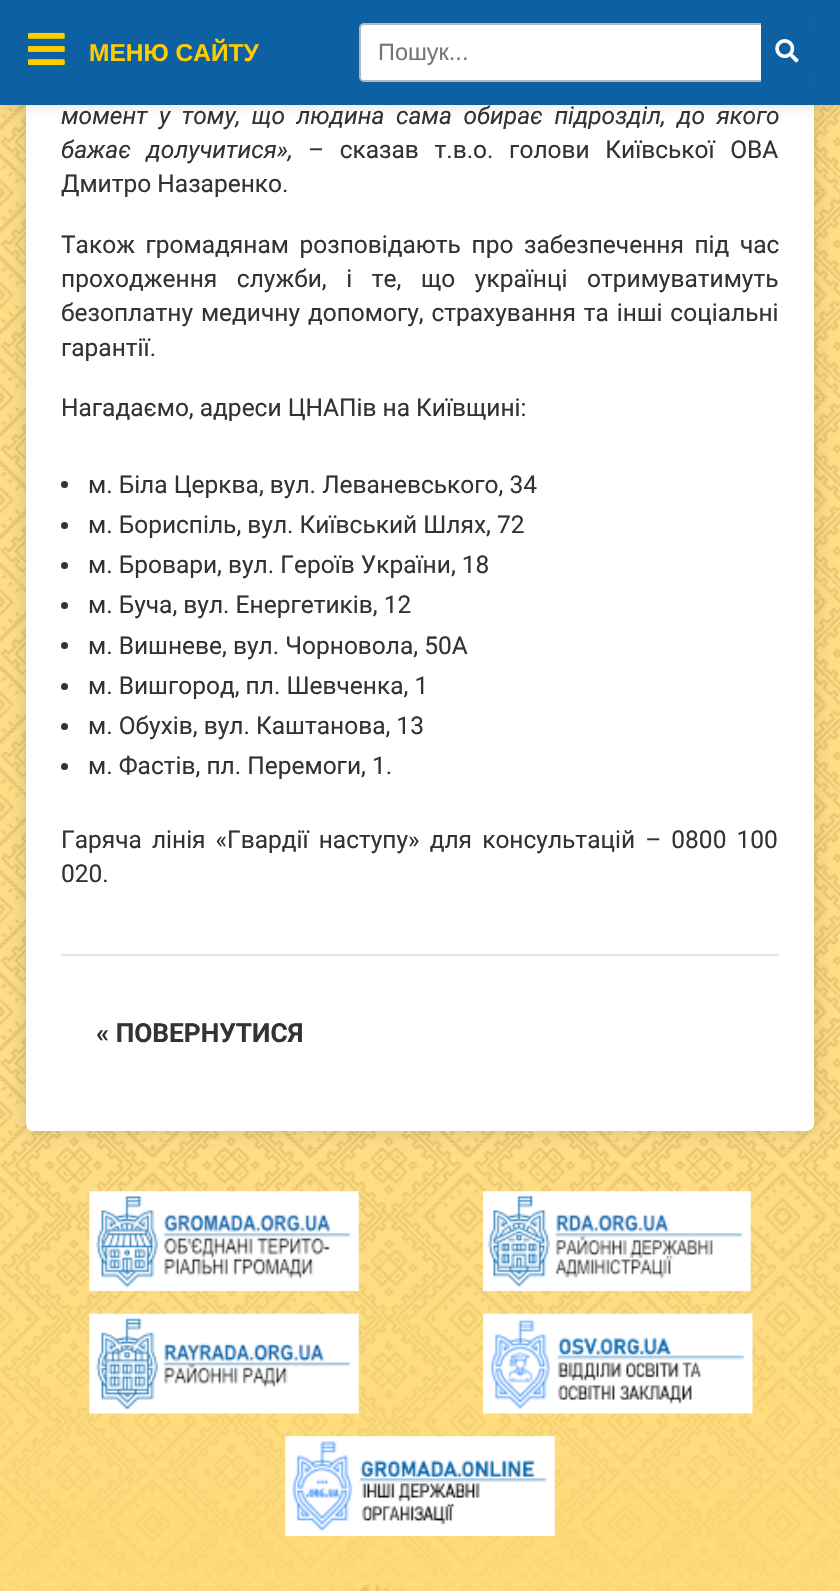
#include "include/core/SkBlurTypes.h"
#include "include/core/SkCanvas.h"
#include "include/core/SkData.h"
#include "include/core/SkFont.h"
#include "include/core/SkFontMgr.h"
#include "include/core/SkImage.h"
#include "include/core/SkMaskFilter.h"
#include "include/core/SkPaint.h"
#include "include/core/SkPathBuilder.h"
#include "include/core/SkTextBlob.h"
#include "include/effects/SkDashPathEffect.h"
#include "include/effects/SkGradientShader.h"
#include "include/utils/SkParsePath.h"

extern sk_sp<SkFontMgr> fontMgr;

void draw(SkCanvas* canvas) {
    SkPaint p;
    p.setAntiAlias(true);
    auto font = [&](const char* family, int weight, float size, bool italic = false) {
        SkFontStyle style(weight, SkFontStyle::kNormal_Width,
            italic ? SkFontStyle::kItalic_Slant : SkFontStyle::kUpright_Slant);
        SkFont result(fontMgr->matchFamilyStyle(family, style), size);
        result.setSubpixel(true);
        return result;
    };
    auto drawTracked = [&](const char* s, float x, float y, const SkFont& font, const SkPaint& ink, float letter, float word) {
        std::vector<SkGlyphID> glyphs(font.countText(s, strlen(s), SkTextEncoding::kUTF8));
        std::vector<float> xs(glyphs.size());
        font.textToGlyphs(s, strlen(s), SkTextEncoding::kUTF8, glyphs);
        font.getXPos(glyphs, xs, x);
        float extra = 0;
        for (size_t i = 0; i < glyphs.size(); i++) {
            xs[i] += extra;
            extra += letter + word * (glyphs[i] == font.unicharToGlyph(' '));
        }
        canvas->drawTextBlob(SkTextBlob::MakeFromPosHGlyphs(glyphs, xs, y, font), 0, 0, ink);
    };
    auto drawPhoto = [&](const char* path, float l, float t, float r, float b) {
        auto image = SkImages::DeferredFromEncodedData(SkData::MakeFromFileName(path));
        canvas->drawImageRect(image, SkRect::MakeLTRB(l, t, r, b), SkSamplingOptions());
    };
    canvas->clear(0xFFFFDA75);
    drawPhoto("media/1.png", 0, 105, 840, 1591);
    {
        const SkColor colors[] = {0x00FFDA75, 0xFFFFDA75};
        const float stops[] = {0, 1};
        const SkPoint ends[] = {{420, 1104}, {420, 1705}};
        p.setShader(SkGradientShader::MakeLinear(ends, colors, stops, 2, SkTileMode::kClamp));
        p.setAlpha(255);
    }
    canvas->drawRect(SkRect::MakeLTRB(0, 1155, 840, 1591), p);
    p.setShader(nullptr);
    p.setColor(0x26000000);
    p.setMaskFilter(SkMaskFilter::MakeBlur(kNormal_SkBlurStyle, 9));
    canvas->drawRoundRect(SkRect::MakeLTRB(26, -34, 814, 1131), 7, 7, p);
    p.setMaskFilter(nullptr);
    p.setColor(0xFFFFFFFF);
    canvas->drawRoundRect(SkRect::MakeLTRB(26, -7, 814, 1131), 7, 7, p);
    p.setColor(0x1A000000);
    p.setMaskFilter(SkMaskFilter::MakeBlur(kNormal_SkBlurStyle, 6));
    canvas->drawRect(SkRect::MakeLTRB(0, 2, 840, 107), p);
    p.setMaskFilter(nullptr);
    p.setColor(0xFF0D61A2);
    canvas->drawRect(SkRect::MakeLTRB(0, 0, 840, 105), p);
    drawPhoto("media/2.png", 28, 32, 65, 66);
    auto font1 = font("Liberation Sans", 700, 24.5f);
    p.setColor(0xFFFFCC00);
    canvas->drawString("МЕНЮ САЙТУ", 89, 61, font1, p);
    auto font2 = font("Roboto", 400, 24.5f, true);
    p.setColor(0xFF333333);
    drawTracked("момент у тому, що людина сама обирає підрозділ, до якого", 61, 124, font2, p, 0, 5.5f);
    drawTracked("бажає долучитися»,", 61, 158, font2, p, 0, 9.5f);
    auto font3 = font("Roboto", 400, 24.5f);
    drawTracked("– сказав т.в.о. голови Київської ОВА", 308, 158, font3, p, 0, 9.5f);
    canvas->drawString("Дмитро Назаренко.", 61, 192, font3, p);
    drawTracked("Також громадянам розповідають про забезпечення під час", 61, 253, font3, p, 0, 4.5f);
    drawTracked("проходження служби, і те, що українці отримуватимуть", 61, 287, font3, p, 0, 13.5f);
    drawTracked("безоплатну медичну допомогу, страхування та інші соціальні", 61, 321, font3, p, 0, 1.75f);
    canvas->drawString("гарантії.", 61, 356, font3, p);
    canvas->drawString("Нагадаємо, адреси ЦНАПів на Київщині:", 61, 416, font3, p);
    canvas->drawCircle(64.5f, 484.5f, 3.5f, p);
    canvas->drawString("м. Біла Церква, вул. Леваневського, 34", 88, 493, font3, p);
    canvas->drawCircle(64.5f, 525.5f, 3.5f, p);
    canvas->drawString("м. Бориспіль, вул. Київський Шлях, 72", 88, 533, font3, p);
    canvas->drawCircle(64.5f, 565.5f, 3.5f, p);
    canvas->drawString("м. Бровари, вул. Героїв України, 18", 88, 573, font3, p);
    canvas->drawCircle(64.5f, 605.5f, 3.5f, p);
    canvas->drawString("м. Буча, вул. Енергетиків, 12", 88, 613, font3, p);
    canvas->drawCircle(64.5f, 645.5f, 3.5f, p);
    canvas->drawString("м. Вишневе, вул. Чорновола, 50А", 88, 654, font3, p);
    canvas->drawCircle(64.5f, 686.5f, 3.5f, p);
    canvas->drawString("м. Вишгород, пл. Шевченка, 1", 88, 694, font3, p);
    canvas->drawCircle(64.5f, 726.5f, 3.5f, p);
    canvas->drawString("м. Обухів, вул. Каштанова, 13", 88, 734, font3, p);
    canvas->drawCircle(64.5f, 766.5f, 3.5f, p);
    canvas->drawString("м. Фастів, пл. Перемоги, 1.", 88, 774, font3, p);
    drawTracked("Гаряча лінія «Гвардії наступу» для консультацій – 0800 100", 61, 848, font3, p, 0, 4);
    canvas->drawString("020.", 61, 882, font3, p);
    p.setColor(0xFFE5E5E5);
    canvas->drawRect(SkRect::MakeLTRB(61, 954, 779, 956), p);
    auto font4 = font("Roboto", 700, 26.25f);
    p.setColor(0xFF333333);
    canvas->drawString("« ПОВЕРНУТИСЯ", 96, 1042, font4, p);
    p.setColor(0xFFFFFFFF);
    canvas->drawRoundRect(SkRect::MakeLTRB(360, 24, 813, 81), 4, 4, p);
    p.setStyle(SkPaint::kStroke_Style);
    p.setStrokeWidth(2);
    p.setColor(0xFFB7B7B7);
    canvas->drawRoundRect(SkRect::MakeLTRB(360, 24, 813, 81), 4, 4, p);
    auto font5 = font("Liberation Sans", 400, 23.5f);
    p.setStyle(SkPaint::kFill_Style);
    p.setColor(0xFF757575);
    canvas->drawString("Пошук...", 378, 60, font5, p);
    p.setColor(0xFF0D61A2);
    canvas->drawPath(SkPathBuilder().moveTo(761, 23).lineTo(809, 23).cubicTo(812, 23, 814, 25, 814, 28).lineTo(814, 77).cubicTo(814, 80, 812, 82, 809, 82).lineTo(761, 82).close().detach(), p);
    drawPhoto("media/3.png", 775, 39, 799, 63);
    drawPhoto("media/4.png", 359, 1583, 403, 1591);
    drawPhoto("media/5.png", 89, 1191, 359, 1291);
    drawPhoto("media/6.png", 483, 1191, 751, 1291);
    drawPhoto("media/7.png", 89, 1313, 359, 1414);
    drawPhoto("media/8.png", 483, 1313, 753, 1414);
    drawPhoto("media/9.png", 285, 1436, 555, 1536);
}
